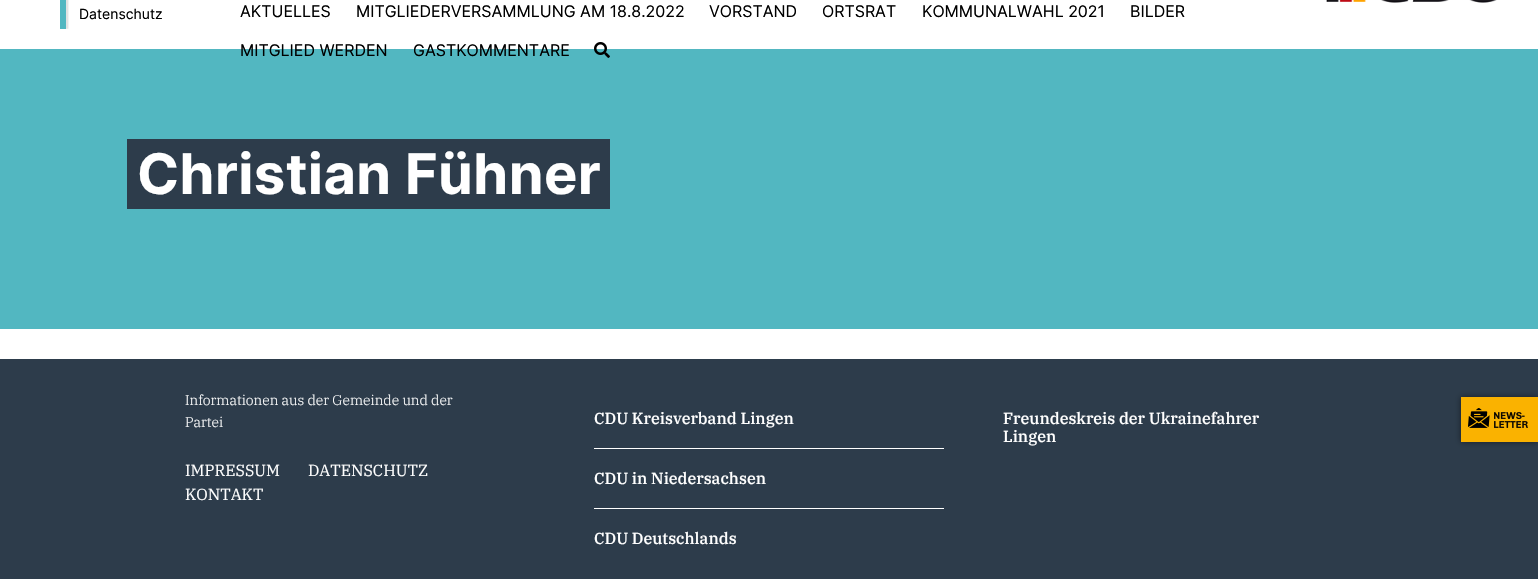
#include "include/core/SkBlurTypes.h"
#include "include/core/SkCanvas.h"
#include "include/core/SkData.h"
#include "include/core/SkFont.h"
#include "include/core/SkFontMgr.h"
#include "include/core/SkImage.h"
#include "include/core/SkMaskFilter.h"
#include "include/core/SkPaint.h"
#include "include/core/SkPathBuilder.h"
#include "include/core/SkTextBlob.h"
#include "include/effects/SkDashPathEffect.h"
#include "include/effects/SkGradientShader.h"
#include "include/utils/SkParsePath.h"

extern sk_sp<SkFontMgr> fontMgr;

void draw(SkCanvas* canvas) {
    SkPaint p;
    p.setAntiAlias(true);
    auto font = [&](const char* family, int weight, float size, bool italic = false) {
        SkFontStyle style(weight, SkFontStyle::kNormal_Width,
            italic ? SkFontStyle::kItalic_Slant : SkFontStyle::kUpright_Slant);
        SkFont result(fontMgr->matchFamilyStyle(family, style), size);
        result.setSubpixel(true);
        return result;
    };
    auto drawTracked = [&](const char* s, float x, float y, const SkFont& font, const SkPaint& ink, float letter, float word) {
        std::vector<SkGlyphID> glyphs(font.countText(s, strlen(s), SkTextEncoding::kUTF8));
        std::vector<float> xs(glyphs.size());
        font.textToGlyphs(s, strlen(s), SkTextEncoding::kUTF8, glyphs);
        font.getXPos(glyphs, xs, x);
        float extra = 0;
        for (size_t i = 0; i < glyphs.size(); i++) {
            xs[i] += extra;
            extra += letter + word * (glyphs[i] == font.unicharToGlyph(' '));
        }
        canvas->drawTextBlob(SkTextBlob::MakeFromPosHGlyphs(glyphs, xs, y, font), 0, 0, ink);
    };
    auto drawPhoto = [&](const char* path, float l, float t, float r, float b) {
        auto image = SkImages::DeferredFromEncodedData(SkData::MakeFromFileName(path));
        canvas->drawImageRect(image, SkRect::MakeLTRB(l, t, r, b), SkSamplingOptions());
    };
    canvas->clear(0xFFFFFFFF);
    drawPhoto("media/1.png", 1326, 0, 1497, 3);
    drawPhoto("media/2.png", 60, 0, 69, 29);
    auto font1 = font("Inter", 400, 14);
    p.setColor(0xFF000000);
    canvas->drawString("Datenschutz", 79, 19, font1, p);
    auto font2 = font("Inter", 400, 16);
    {
        const struct { const char* s; float x, y; } items[] = {
            {"AKTUELLES", 240, 17},
            {"MITGLIEDERVERSAMMLUNG AM 18.8.2022", 356, 17},
            {"VORSTAND", 709, 17},
            {"ORTSRAT", 822, 17},
            {"KOMMUNALWAHL 2021", 922, 17},
            {"BILDER", 1130, 17},
        };
        for (auto [s, x, y] : items) {
            canvas->drawString(s, x, y, font2, p);
        }
    }
    p.setColor(0xFF52B7C1);
    canvas->drawRect(SkRect::MakeLTRB(0, 49, 1538, 329), p);
    p.setColor(0xFF000000);
    canvas->drawString("MITGLIED WERDEN", 240, 56, font2, p);
    canvas->drawString("GASTKOMMENTARE", 413, 56, font2, p);
    drawPhoto("media/3.png", 594, 42, 610, 58);
    p.setColor(0xFF2D3C4B);
    canvas->drawRect(SkRect::MakeLTRB(127, 139, 610, 209), p);
    auto font3 = font("Inter", 700, 56);
    p.setColor(0xFFFFFFFF);
    drawTracked("Christian Fühner", 137, 194, font3, p, 0.4f, 0);
    p.setColor(0xFF2D3C4B);
    canvas->drawRect(SkRect::MakeLTRB(0, 359, 1538, 579), p);
    auto font4 = font("IBM Plex Serif", 300, 14);
    p.setColor(0xFFFFFFFF);
    canvas->drawString("Informationen aus der Gemeinde und der", 185, 405, font4, p);
    canvas->drawString("Partei", 185, 427, font4, p);
    auto font5 = font("IBM Plex Serif", 400, 16);
    {
        const struct { const char* s; float x, y; } items[] = {
            {"IMPRESSUM", 185, 476},
            {"DATENSCHUTZ", 308, 476},
            {"KONTAKT", 185, 500},
        };
        for (auto [s, x, y] : items) {
            canvas->drawString(s, x, y, font5, p);
        }
    }
    canvas->drawRect(SkRect::MakeLTRB(594, 448, 944, 449), p);
    auto font6 = font("IBM Plex Serif", 500, 16);
    canvas->drawString("CDU Kreisverband Lingen", 594, 424, font6, p);
    canvas->drawRect(SkRect::MakeLTRB(594, 508, 944, 509), p);
    {
        const struct { const char* s; float x, y; } items[] = {
            {"CDU in Niedersachsen", 594, 484},
            {"CDU Deutschlands", 594, 544},
            {"Freundeskreis der Ukrainefahrer", 1003, 424},
            {"Lingen", 1003, 442},
        };
        for (auto [s, x, y] : items) {
            canvas->drawString(s, x, y, font6, p);
        }
    }
    p.setColor(0x80000000);
    p.setMaskFilter(SkMaskFilter::MakeBlur(kNormal_SkBlurStyle, 3));
    canvas->drawRect(SkRect::MakeLTRB(1461, 397, 1538, 442), p);
    p.setMaskFilter(nullptr);
    p.setColor(0xFFFAB200);
    canvas->drawRect(SkRect::MakeLTRB(1461, 397, 1538, 442), p);
    drawPhoto("media/4.png", 1468, 408, 1528, 428);
}
